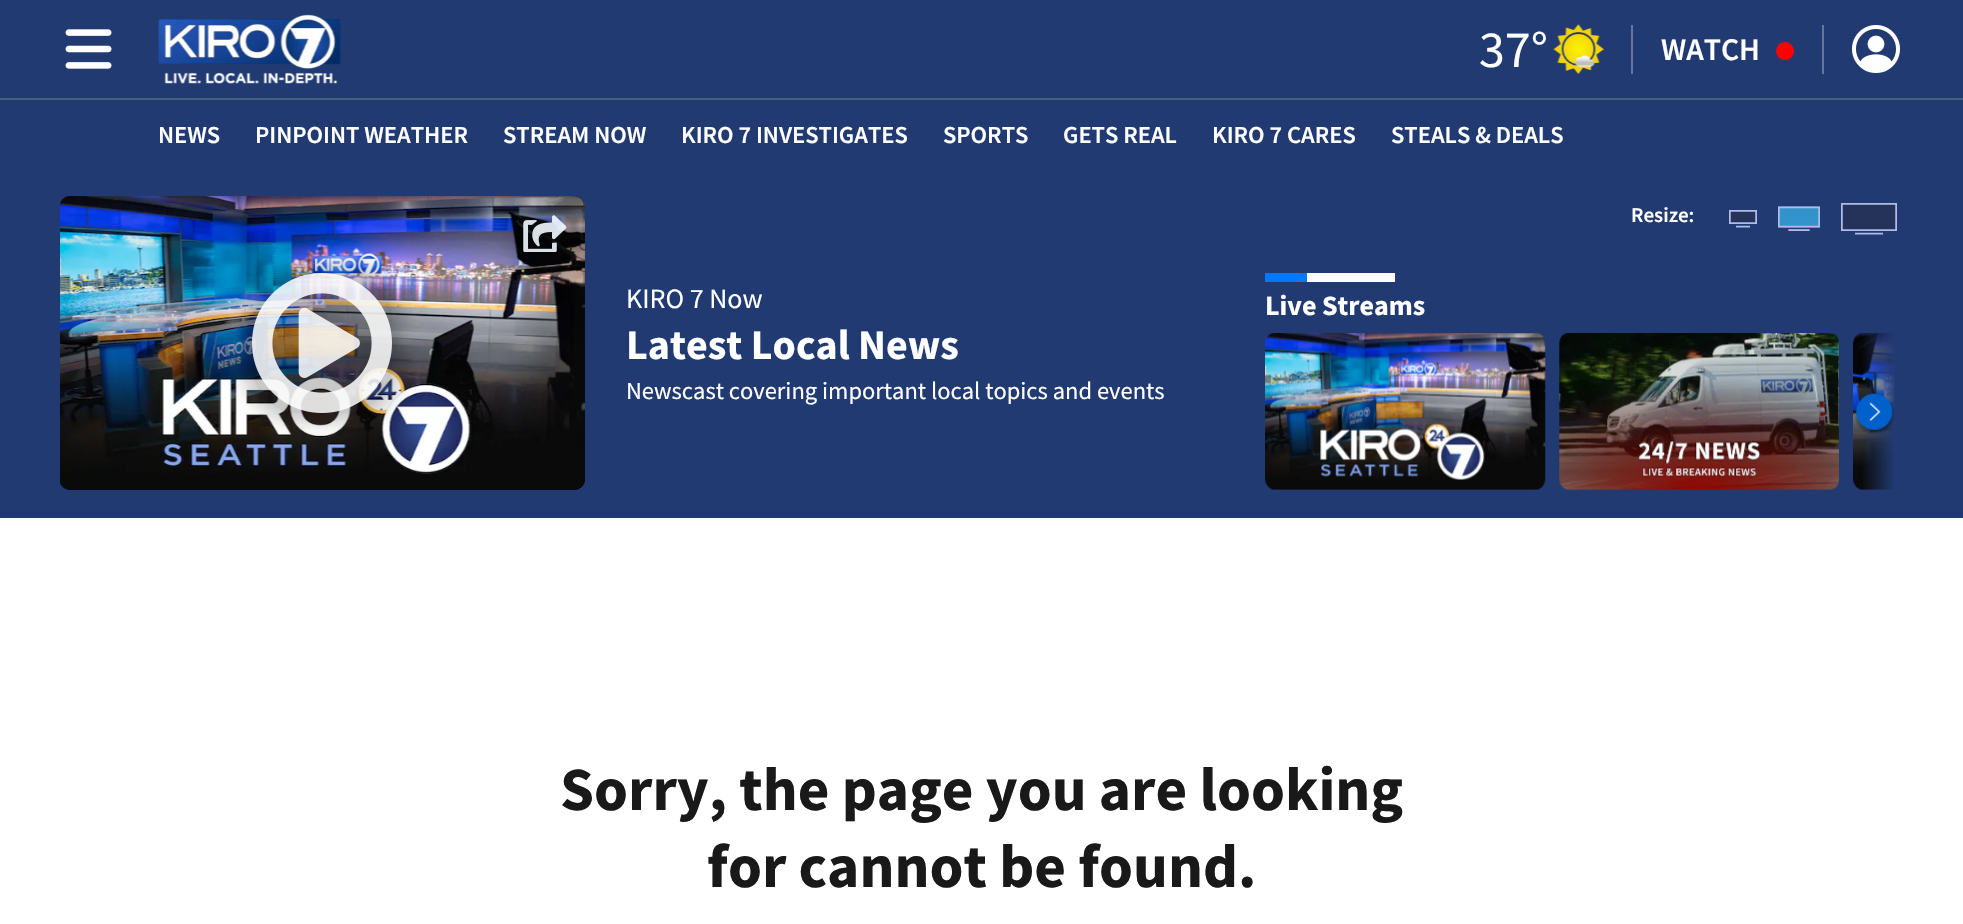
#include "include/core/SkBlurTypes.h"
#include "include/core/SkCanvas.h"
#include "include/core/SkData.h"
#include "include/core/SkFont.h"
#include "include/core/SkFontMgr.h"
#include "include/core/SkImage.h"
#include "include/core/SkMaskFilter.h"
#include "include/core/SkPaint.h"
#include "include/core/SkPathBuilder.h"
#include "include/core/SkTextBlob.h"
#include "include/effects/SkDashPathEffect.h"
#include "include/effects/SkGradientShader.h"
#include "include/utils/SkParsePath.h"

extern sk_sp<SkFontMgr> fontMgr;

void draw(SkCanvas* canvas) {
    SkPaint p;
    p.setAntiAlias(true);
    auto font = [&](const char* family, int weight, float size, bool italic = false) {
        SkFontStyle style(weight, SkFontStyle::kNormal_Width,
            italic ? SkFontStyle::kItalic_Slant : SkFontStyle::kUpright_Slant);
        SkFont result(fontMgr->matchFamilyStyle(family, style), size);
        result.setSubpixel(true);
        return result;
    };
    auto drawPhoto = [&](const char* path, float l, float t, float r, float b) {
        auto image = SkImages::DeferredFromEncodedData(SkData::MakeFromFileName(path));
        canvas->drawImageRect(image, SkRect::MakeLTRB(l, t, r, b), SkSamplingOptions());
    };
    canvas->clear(0xFFFFFFFF);
    p.setColor(0xFF213B72);
    canvas->drawRect(SkRect::MakeLTRB(0, 0, 1963, 98), p);
    drawPhoto("media/1.png", 65, 29, 112, 69);
    drawPhoto("media/2.png", 158, 14, 341, 84);
    auto font1 = font("Source Sans Pro", 400, 52);
    p.setColor(0xFFFFFFFF);
    canvas->drawString("37°", 1479, 67, font1, p);
    drawPhoto("media/3.png", 1553, 24, 1605, 74);
    p.setColor(0xFF64769C);
    canvas->drawRect(SkRect::MakeLTRB(1631, 25, 1633, 74), p);
    auto font2 = font("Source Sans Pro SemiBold", 600, 31.5f);
    p.setColor(0xFFFFFFFF);
    canvas->drawString("WATCH", 1661, 60, font2, p);
    p.setColor(0xFFFF0000);
    canvas->drawCircle(1785, 51, 9, p);
    p.setColor(0xFF64769C);
    canvas->drawRect(SkRect::MakeLTRB(1822, 25, 1824, 74), p);
    drawPhoto("media/4.png", 1852, 25, 1900, 73);
    p.setColor(0xFF4B5D78);
    canvas->drawRect(SkRect::MakeLTRB(0, 98, 1963, 100), p);
    p.setColor(0xFF213B72);
    canvas->drawRect(SkRect::MakeLTRB(0, 100, 1963, 518), p);
    auto font3 = font("Source Sans Pro SemiBold", 600, 24.5f);
    p.setColor(0xFFFFFFFF);
    {
        const struct { const char* s; float x, y; } items[] = {
            {"NEWS", 158, 143},
            {"PINPOINT WEATHER", 255, 143},
            {"STREAM NOW", 503, 143},
            {"KIRO 7 INVESTIGATES", 681, 143},
            {"SPORTS", 943, 143},
            {"GETS REAL", 1063, 143},
            {"KIRO 7 CARES", 1212, 143},
            {"STEALS & DEALS", 1391, 143},
        };
        for (auto [s, x, y] : items) {
            canvas->drawString(s, x, y, font3, p);
        }
    }
    p.setColor(0xFF000000);
    canvas->drawRoundRect(SkRect::MakeLTRB(60, 196, 585, 490), 11, 11, p);
    drawPhoto("media/6.png", 60, 196, 585, 490);
    canvas->save();
    canvas->clipRect(SkRect::MakeLTRB(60, 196, 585, 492));
    canvas->clipPath(SkPathBuilder(SkPathFillType::kEvenOdd).moveTo(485, 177).lineTo(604, 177).lineTo(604, 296).lineTo(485, 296).close().moveTo(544.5f, 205).cubicTo(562, 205, 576, 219, 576, 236.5f).cubicTo(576, 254, 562, 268, 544.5f, 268).cubicTo(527, 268, 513, 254, 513, 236.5f).cubicTo(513, 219, 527, 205, 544.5f, 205).close().detach(), true);
    p.setColor(0x1A000000);
    p.setMaskFilter(SkMaskFilter::MakeBlur(kNormal_SkBlurStyle, 6.5f));
    canvas->drawRoundRect(SkRect::MakeLTRB(506, 198, 583, 275), 38.5f, 38.5f, p);
    p.setMaskFilter(nullptr);
    canvas->restore();
    canvas->drawCircle(544.5f, 236.5f, 31.5f, p);
    drawPhoto("media/5.png", 523, 215, 567, 252);
    canvas->save();
    canvas->clipPath(SkPathBuilder(SkPathFillType::kEvenOdd).moveTo(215, 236).lineTo(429, 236).lineTo(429, 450).lineTo(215, 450).close().moveTo(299, 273).lineTo(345, 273).cubicTo(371, 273, 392, 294, 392, 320).lineTo(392, 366).cubicTo(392, 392, 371, 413, 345, 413).lineTo(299, 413).cubicTo(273, 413, 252, 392, 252, 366).lineTo(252, 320).cubicTo(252, 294, 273, 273, 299, 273).close().detach(), true);
    p.setColor(0x36000000);
    p.setMaskFilter(SkMaskFilter::MakeBlur(kNormal_SkBlurStyle, 9));
    canvas->drawRoundRect(SkRect::MakeLTRB(243, 264, 401, 422), 56, 56, p);
    p.setMaskFilter(nullptr);
    canvas->restore();
    canvas->drawRoundRect(SkRect::MakeLTRB(252, 273, 392, 413), 47, 47, p);
    drawPhoto("media/7.png", 252, 273, 392, 413);
    auto font4 = font("Source Sans Pro SemiBold", 600, 21);
    p.setColor(0xFFFFFFFF);
    canvas->drawString("Resize:", 1631, 222, font4, p);
    drawPhoto("media/8.png", 1729, 210, 1757, 228);
    drawPhoto("media/9.png", 1778, 206, 1820, 231);
    drawPhoto("media/10.png", 1841, 203, 1897, 235);
    auto font5 = font("Source Sans Pro", 400, 28);
    canvas->drawString("KIRO 7 Now", 626, 308, font5, p);
    auto font6 = font("Source Sans Pro", 700, 42);
    canvas->drawString("Latest Local News", 626, 359, font6, p);
    auto font7 = font("Source Sans Pro", 400, 24.5f);
    canvas->drawString("Newscast covering important local topics and events", 626, 399, font7, p);
    canvas->drawRect(SkRect::MakeLTRB(1307, 273, 1395, 282), p);
    p.setColor(0xFF0079FF);
    canvas->drawRect(SkRect::MakeLTRB(1265, 273, 1307, 282), p);
    auto font8 = font("Source Sans Pro", 700, 28);
    p.setColor(0xFFFFFFFF);
    canvas->drawString("Live Streams", 1265, 315, font8, p);
    drawPhoto("media/11.png", 1265, 333, 1546, 490);
    drawPhoto("media/12.png", 1559, 333, 1839, 490);
    drawPhoto("media/13.png", 1853, 333, 1895, 490);
    {
        const SkColor colors[] = {0x00213B72, 0xFF213B72};
        const float stops[] = {0, 0.8f};
        const SkPoint ends[] = {{1862, 403}, {1904, 403}};
        p.setShader(SkGradientShader::MakeLinear(ends, colors, stops, 2, SkTileMode::kClamp));
        p.setAlpha(255);
    }
    canvas->drawRect(SkRect::MakeLTRB(1863, 333, 1895, 490), p);
    drawPhoto("media/14.png", 1854, 393, 1894, 434);
    auto font9 = font("Source Sans Pro", 700, 61.25f);
    p.setShader(nullptr);
    p.setColor(0xFF191919);
    canvas->drawString("Sorry, the page you are looking", 560, 810, font9, p);
    canvas->drawString("for cannot be found.", 707, 887, font9, p);
}
